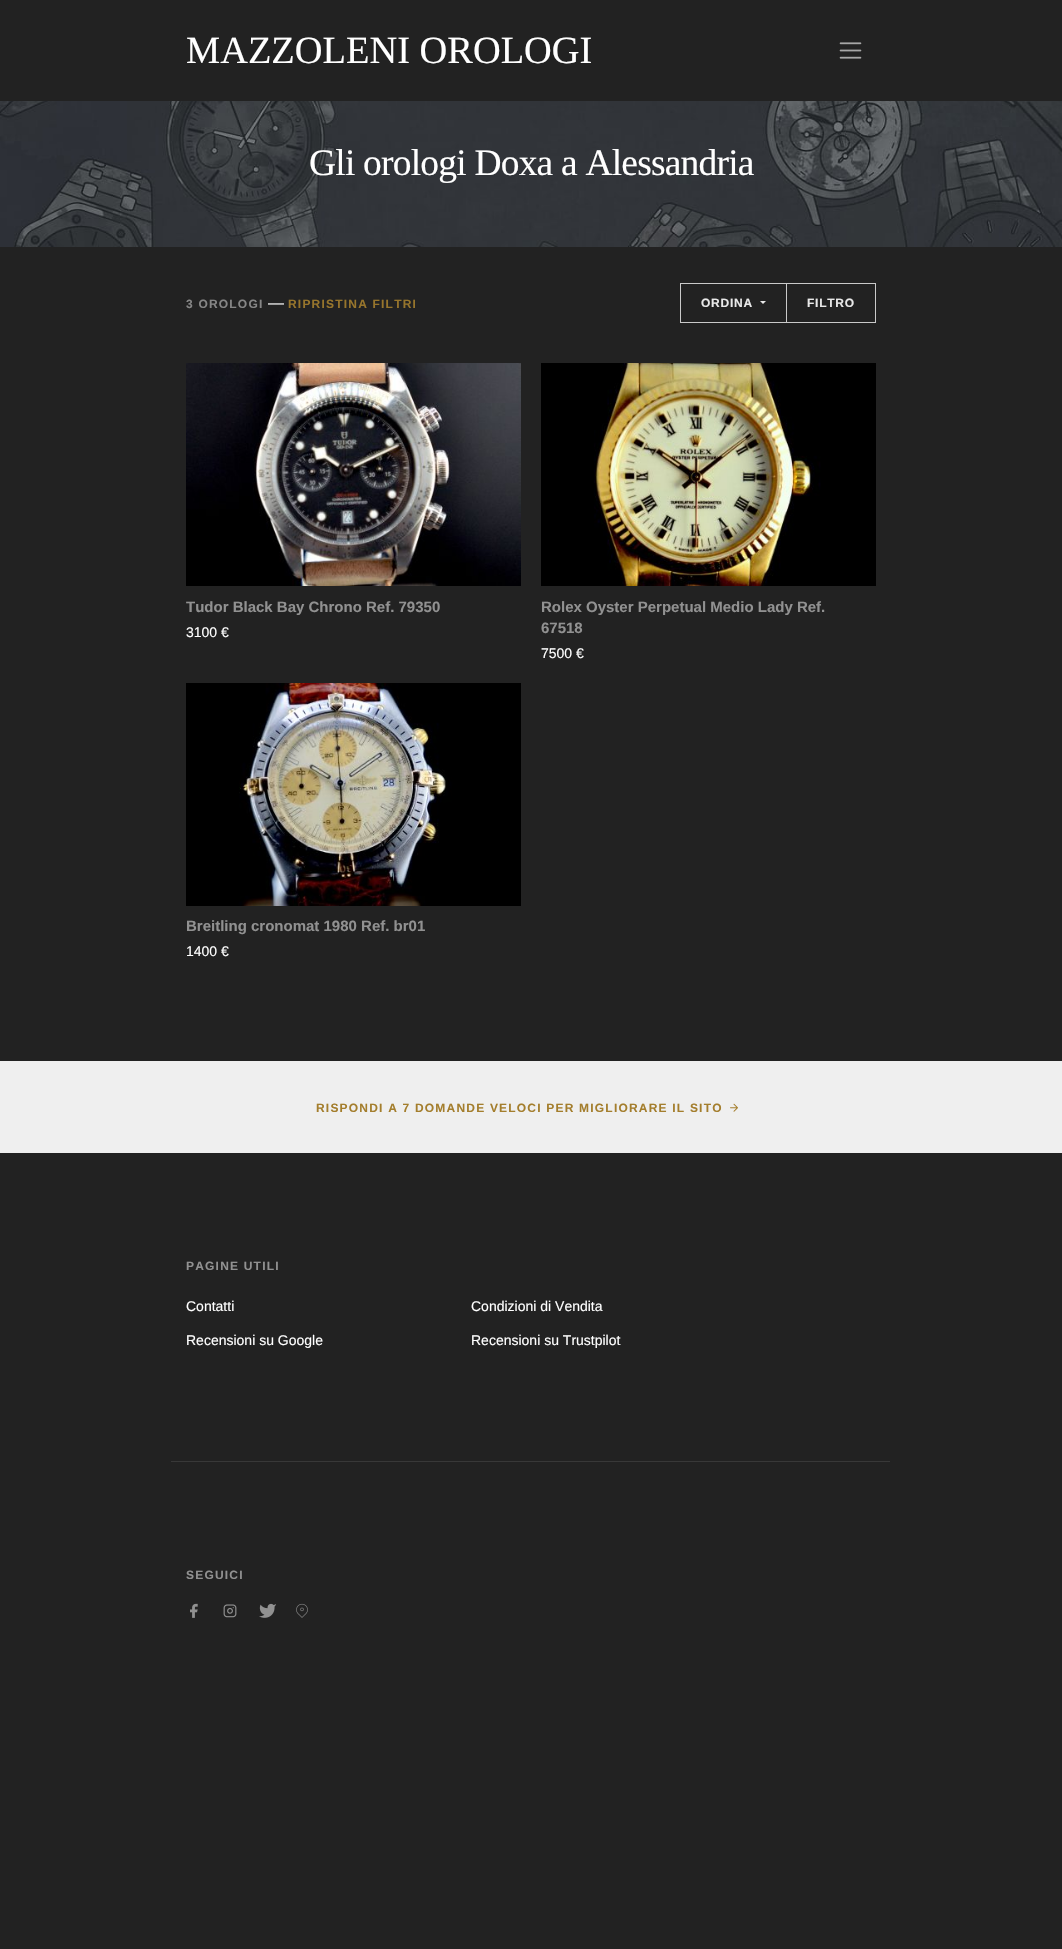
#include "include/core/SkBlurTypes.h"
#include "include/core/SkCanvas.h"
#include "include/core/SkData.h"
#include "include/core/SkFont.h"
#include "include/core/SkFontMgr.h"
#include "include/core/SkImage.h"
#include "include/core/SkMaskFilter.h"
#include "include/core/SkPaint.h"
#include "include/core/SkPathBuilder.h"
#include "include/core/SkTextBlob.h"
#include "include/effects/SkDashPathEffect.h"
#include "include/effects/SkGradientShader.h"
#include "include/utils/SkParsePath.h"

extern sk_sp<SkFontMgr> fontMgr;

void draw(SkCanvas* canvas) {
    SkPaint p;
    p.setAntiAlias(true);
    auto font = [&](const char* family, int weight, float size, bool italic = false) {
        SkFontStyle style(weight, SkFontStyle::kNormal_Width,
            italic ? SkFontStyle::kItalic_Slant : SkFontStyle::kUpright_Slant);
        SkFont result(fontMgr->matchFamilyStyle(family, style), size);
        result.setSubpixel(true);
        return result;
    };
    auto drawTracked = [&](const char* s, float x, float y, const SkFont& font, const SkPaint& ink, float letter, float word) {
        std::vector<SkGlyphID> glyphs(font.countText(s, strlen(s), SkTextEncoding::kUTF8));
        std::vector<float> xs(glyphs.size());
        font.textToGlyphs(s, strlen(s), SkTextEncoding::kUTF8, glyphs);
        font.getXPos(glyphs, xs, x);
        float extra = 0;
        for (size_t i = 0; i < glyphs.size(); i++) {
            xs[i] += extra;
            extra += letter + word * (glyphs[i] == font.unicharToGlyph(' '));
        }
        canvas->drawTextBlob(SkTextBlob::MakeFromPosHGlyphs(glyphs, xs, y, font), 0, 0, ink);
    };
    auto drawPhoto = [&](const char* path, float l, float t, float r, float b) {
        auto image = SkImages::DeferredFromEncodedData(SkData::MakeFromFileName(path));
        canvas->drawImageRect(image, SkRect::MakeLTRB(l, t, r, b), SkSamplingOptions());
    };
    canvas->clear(0xFF222222);
    auto font1 = font("Liberation Serif", 400, 38.4f);
    p.setColor(0xFFFFFFFF);
    canvas->drawString("MAZZOLENI OROLOGI", 186, 63, font1, p);
    drawPhoto("media/1.png", 839, 42, 862, 59);
    drawPhoto("media/2.png", 0, 101, 1062, 247);
    auto font2 = font("Liberation Serif", 400, 37.5f);
    drawTracked("Gli orologi Doxa a Alessandria", 309, 175, font2, p, -0.8f, 0);
    auto font3 = font("Liberation Sans", 700, 12);
    p.setColor(0xFF868686);
    drawTracked("3 OROLOGI", 186, 308, font3, p, 1.2f, 0);
    auto font4 = font("Liberation Sans", 400, 16);
    p.setColor(0xFFE9E9E9);
    canvas->drawString("—", 268, 308, font4, p);
    p.setColor(0xFF97752C);
    drawTracked("RIPRISTINA FILTRI", 288, 308, font3, p, 1.2f, 0);
    p.setStyle(SkPaint::kStroke_Style);
    p.setStrokeWidth(1);
    p.setColor(0xFFCACACA);
    canvas->drawRect(SkRect::MakeLTRB(680.5f, 283.5f, 786.5f, 322.5f), p);
    p.setStyle(SkPaint::kFill_Style);
    p.setColor(0xFFE9E9E9);
    drawTracked("ORDINA", 701, 307, font3, p, 0.75f, 0);
    canvas->drawPath(SkPathBuilder().moveTo(760, 301).lineTo(766, 301).lineTo(763, 304).close().detach(), p);
    p.setStyle(SkPaint::kStroke_Style);
    p.setColor(0xFFCACACA);
    canvas->drawRect(SkRect::MakeLTRB(786.5f, 283.5f, 875.5f, 322.5f), p);
    p.setStyle(SkPaint::kFill_Style);
    p.setColor(0xFFE9E9E9);
    drawTracked("FILTRO", 807, 307, font3, p, 0.75f, 0);
    drawPhoto("media/3.png", 186, 363, 521, 586);
    auto font5 = font("Liberation Sans", 700, 15);
    p.setColor(0xFF919191);
    canvas->drawString("Tudor Black Bay Chrono Ref. 79350", 186, 612, font5, p);
    auto font6 = font("Liberation Sans", 400, 14);
    p.setColor(0xFFFFFFFF);
    canvas->drawString("3100 €", 186, 637, font6, p);
    drawPhoto("media/4.png", 541, 363, 876, 586);
    p.setColor(0xFF919191);
    canvas->drawString("Rolex Oyster Perpetual Medio Lady Ref.", 541, 612, font5, p);
    canvas->drawString("67518", 541, 633, font5, p);
    p.setColor(0xFFFFFFFF);
    canvas->drawString("7500 €", 541, 658, font6, p);
    drawPhoto("media/5.png", 186, 683, 521, 906);
    p.setColor(0xFF919191);
    canvas->drawString("Breitling cronomat 1980 Ref. br01", 186, 931, font5, p);
    p.setColor(0xFFFFFFFF);
    canvas->drawString("1400 €", 186, 956, font6, p);
    p.setColor(0xFFEFEFEF);
    canvas->drawRect(SkRect::MakeLTRB(0, 1061, 1062, 1153), p);
    p.setColor(0xFFA47E2D);
    drawTracked("RISPONDI A 7 DOMANDE VELOCI PER MIGLIORARE IL SITO", 316, 1112, font3, p, 1.2f, 0);
    drawPhoto("media/6.png", 730, 1103, 738, 1112);
    p.setColor(0xFF919191);
    drawTracked("PAGINE UTILI", 186, 1270, font3, p, 1.2f, 0);
    p.setColor(0xFFFFFFFF);
    {
        const struct { const char* s; float x, y; } items[] = {
            {"Contatti", 186, 1311},
            {"Condizioni di Vendita", 471, 1311},
            {"Recensioni su Google", 186, 1345},
            {"Recensioni su Trustpilot", 471, 1345},
        };
        for (auto [s, x, y] : items) {
            canvas->drawString(s, x, y, font6, p);
        }
    }
    canvas->save();
    canvas->clipRect(SkRect::MakeLTRB(171, 1153, 891, 1729));
    p.setColor(0xFF383838);
    canvas->drawPath(SkPathBuilder().moveTo(170, 1461).lineTo(170, 1728).lineTo(171, 1728).lineTo(171, 1462).lineTo(890, 1462).lineTo(890, 1461).close().detach(), p);
    canvas->restore();
    p.setColor(0xFF919191);
    drawTracked("SEGUICI", 186, 1579, font3, p, 1.2f, 0);
    drawPhoto("media/7.png", 190, 1603, 198, 1618);
    drawPhoto("media/8.png", 223, 1604, 237, 1618);
    drawPhoto("media/9.png", 259, 1603, 276, 1618);
    drawPhoto("media/10.png", 296, 1603, 308, 1618);
}
